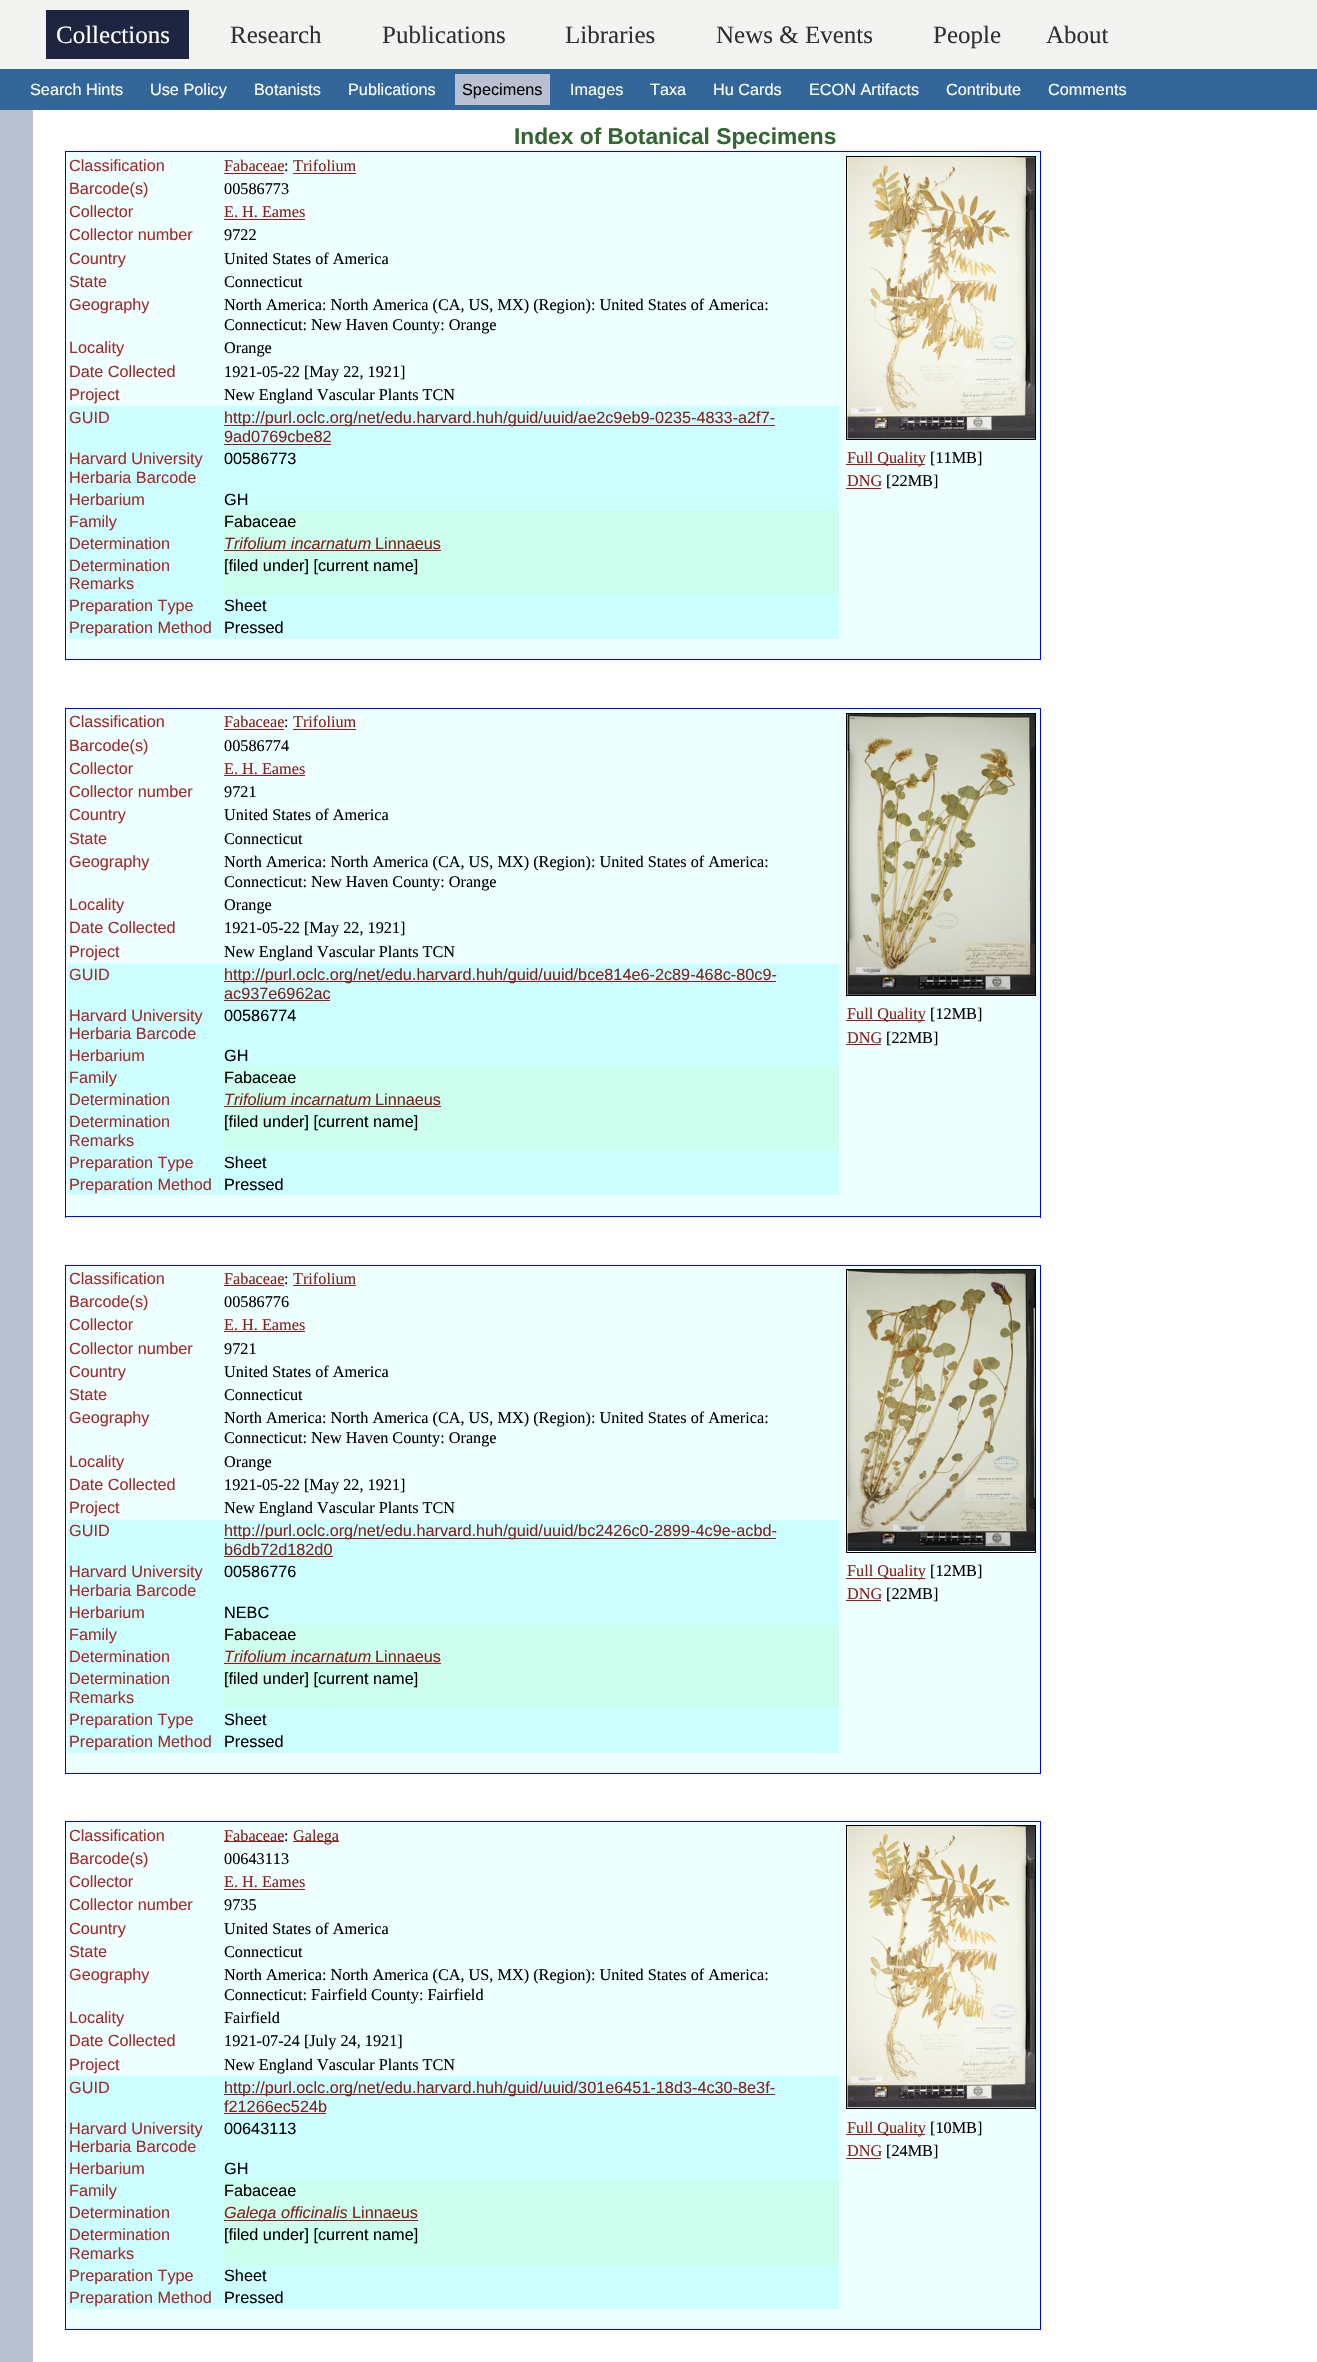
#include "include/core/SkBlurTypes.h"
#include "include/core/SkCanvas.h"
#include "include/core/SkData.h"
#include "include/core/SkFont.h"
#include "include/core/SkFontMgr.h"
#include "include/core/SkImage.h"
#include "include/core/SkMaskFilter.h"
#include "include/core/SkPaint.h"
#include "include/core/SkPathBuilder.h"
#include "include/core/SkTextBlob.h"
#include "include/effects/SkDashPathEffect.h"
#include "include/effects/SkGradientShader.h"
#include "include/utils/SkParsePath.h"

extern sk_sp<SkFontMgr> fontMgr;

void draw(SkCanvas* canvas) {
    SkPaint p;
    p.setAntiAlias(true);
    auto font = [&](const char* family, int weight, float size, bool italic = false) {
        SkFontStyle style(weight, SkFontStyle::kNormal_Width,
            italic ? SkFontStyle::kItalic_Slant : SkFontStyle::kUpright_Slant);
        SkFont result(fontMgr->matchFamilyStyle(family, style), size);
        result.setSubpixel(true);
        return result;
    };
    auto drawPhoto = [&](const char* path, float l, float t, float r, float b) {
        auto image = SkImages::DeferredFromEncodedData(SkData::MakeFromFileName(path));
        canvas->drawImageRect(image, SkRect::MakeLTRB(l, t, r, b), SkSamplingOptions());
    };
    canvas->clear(0xFFF3F3F1);
    p.setColor(0xFF1E2540);
    canvas->drawRect(SkRect::MakeLTRB(46, 10, 189, 59), p);
    auto font1 = font("Liberation Serif", 400, 25);
    p.setColor(0xFFFFFFFF);
    canvas->drawString("Collections", 56, 43, font1, p);
    p.setColor(0xFF303030);
    {
        const struct { const char* s; float x, y; } items[] = {
            {"Research", 230, 43},
            {"Publications", 382, 43},
            {"Libraries", 565, 43},
            {"News & Events", 716, 43},
            {"People", 933, 43},
            {"About", 1046, 43},
        };
        for (auto [s, x, y] : items) {
            canvas->drawString(s, x, y, font1, p);
        }
    }
    p.setColor(0xFF336699);
    canvas->drawRect(SkRect::MakeLTRB(0, 69, 1317, 110), p);
    auto font2 = font("Liberation Sans", 400, 16.25f);
    p.setColor(0xFFFFFFFF);
    {
        const struct { const char* s; float x, y; } items[] = {
            {"Search Hints", 30, 95},
            {"Use Policy", 150, 95},
            {"Botanists", 254, 95},
            {"Publications", 348, 95},
        };
        for (auto [s, x, y] : items) {
            canvas->drawString(s, x, y, font2, p);
        }
    }
    p.setColor(0xFFB8C0D2);
    canvas->drawRect(SkRect::MakeLTRB(455, 74, 550, 105), p);
    p.setColor(0xFF000000);
    canvas->drawString("Specimens", 462, 95, font2, p);
    p.setColor(0xFFFFFFFF);
    {
        const struct { const char* s; float x, y; } items[] = {
            {"Images", 570, 95},
            {"Taxa", 650, 95},
            {"Hu Cards", 713, 95},
            {"ECON Artifacts", 809, 95},
            {"Contribute", 946, 95},
            {"Comments", 1048, 95},
        };
        for (auto [s, x, y] : items) {
            canvas->drawString(s, x, y, font2, p);
        }
    }
    p.setColor(0xFFB8C0D2);
    canvas->drawRect(SkRect::MakeLTRB(0, 110, 33, 2362), p);
    p.setColor(0xFFFFFFFF);
    canvas->drawRect(SkRect::MakeLTRB(33, 110, 1317, 2362), p);
    auto font3 = font("Liberation Sans", 700, 22.75f);
    p.setColor(0xFF336633);
    canvas->drawString("Index of Botanical Specimens", 514, 144, font3, p);
    {
        const struct { float l, t, r, b; SkColor color; } items[] = {
            {66, 152, 1040, 659, 0xFFEEFFFF},
            {65, 151, 1041, 152, 0xFF0000FF},
            {1040, 151, 1041, 660, 0xFF0000FF},
            {65, 659, 1041, 660, 0xFF0000FF},
            {65, 151, 66, 660, 0xFF0000FF},
        };
        for (auto [l, t, r, b, color] : items) {
            p.setColor(color);
            canvas->drawRect(SkRect::MakeLTRB(l, t, r, b), p);
        }
    }
    p.setColor(0xFFA52A2A);
    canvas->drawString("Classification", 69, 171, font2, p);
    auto font4 = font("Liberation Serif", 400, 16.25f);
    p.setColor(0xFF89201B);
    canvas->drawString("Fabaceae", 224, 171, font4, p);
    canvas->drawRect(SkRect::MakeLTRB(224, 173, 284, 174), p);
    p.setColor(0xFF000000);
    canvas->drawString(":", 284, 171, font4, p);
    p.setColor(0xFF89201B);
    canvas->drawString("Trifolium", 293, 171, font4, p);
    canvas->drawRect(SkRect::MakeLTRB(293, 173, 356, 174), p);
    p.setColor(0xFFA52A2A);
    canvas->drawString("Barcode(s)", 69, 194, font2, p);
    p.setColor(0xFF000000);
    canvas->drawString("00586773", 224, 194, font4, p);
    p.setColor(0xFFA52A2A);
    canvas->drawString("Collector", 69, 217, font2, p);
    p.setColor(0xFF89201B);
    canvas->drawString("E. H. Eames", 224, 217, font4, p);
    canvas->drawRect(SkRect::MakeLTRB(224, 219, 305, 220), p);
    p.setColor(0xFFA52A2A);
    canvas->drawString("Collector number", 69, 240, font2, p);
    p.setColor(0xFF000000);
    canvas->drawString("9722", 224, 240, font4, p);
    p.setColor(0xFFA52A2A);
    canvas->drawString("Country", 69, 264, font2, p);
    p.setColor(0xFF000000);
    canvas->drawString("United States of America", 224, 264, font4, p);
    p.setColor(0xFFA52A2A);
    canvas->drawString("State", 69, 287, font2, p);
    p.setColor(0xFF000000);
    canvas->drawString("Connecticut", 224, 287, font4, p);
    p.setColor(0xFFA52A2A);
    canvas->drawString("Geography", 69, 310, font2, p);
    p.setColor(0xFF000000);
    canvas->drawString("North America: North America (CA, US, MX) (Region): United States of America:", 224, 310, font4, p);
    canvas->drawString("Connecticut: New Haven County: Orange", 224, 330, font4, p);
    p.setColor(0xFFA52A2A);
    canvas->drawString("Locality", 69, 353, font2, p);
    p.setColor(0xFF000000);
    canvas->drawString("Orange", 224, 353, font4, p);
    p.setColor(0xFFA52A2A);
    canvas->drawString("Date Collected", 69, 377, font2, p);
    p.setColor(0xFF000000);
    canvas->drawString("1921-05-22 [May 22, 1921]", 224, 377, font4, p);
    p.setColor(0xFFA52A2A);
    canvas->drawString("Project", 69, 400, font2, p);
    p.setColor(0xFF000000);
    canvas->drawString("New England Vascular Plants TCN", 224, 400, font4, p);
    p.setColor(0xFFCCFFFF);
    canvas->drawRect(SkRect::MakeLTRB(68, 406, 839, 510), p);
    p.setColor(0xFFA52A2A);
    canvas->drawString("GUID", 69, 423, font2, p);
    p.setColor(0xFF89201B);
    canvas->drawRect(SkRect::MakeLTRB(224, 425, 775, 426), p);
    canvas->drawString("http://purl.oclc.org/net/edu.harvard.huh/guid/uuid/ae2c9eb9-0235-4833-a2f7-", 224, 423, font2, p);
    canvas->drawString("9ad0769cbe82", 224, 442, font2, p);
    canvas->drawRect(SkRect::MakeLTRB(224, 444, 331, 445), p);
    p.setColor(0xFFA52A2A);
    canvas->drawString("Harvard University", 69, 464, font2, p);
    canvas->drawString("Herbaria Barcode", 69, 483, font2, p);
    p.setColor(0xFF000000);
    canvas->drawString("00586773", 224, 464, font2, p);
    p.setColor(0xFFA52A2A);
    canvas->drawString("Herbarium", 69, 505, font2, p);
    p.setColor(0xFF000000);
    canvas->drawString("GH", 224, 505, font2, p);
    p.setColor(0xFFCCFFFF);
    canvas->drawRect(SkRect::MakeLTRB(68, 510, 223, 595), p);
    p.setColor(0xFFA52A2A);
    canvas->drawString("Family", 69, 527, font2, p);
    p.setColor(0xFFCCFFEE);
    canvas->drawRect(SkRect::MakeLTRB(223, 510, 839, 595), p);
    p.setColor(0xFF000000);
    canvas->drawString("Fabaceae", 224, 527, font2, p);
    p.setColor(0xFFA52A2A);
    canvas->drawString("Determination", 69, 549, font2, p);
    auto font5 = font("Liberation Sans", 400, 16.25f, true);
    p.setColor(0xFF89201B);
    canvas->drawString("Trifolium incarnatum", 224, 549, font5, p);
    canvas->drawRect(SkRect::MakeLTRB(224, 550, 441, 551), p);
    canvas->drawString("Linnaeus", 375, 549, font2, p);
    p.setColor(0xFFA52A2A);
    canvas->drawString("Determination", 69, 571, font2, p);
    canvas->drawString("Remarks", 69, 589, font2, p);
    p.setColor(0xFF000000);
    canvas->drawString("[filed under] [current name]", 224, 571, font2, p);
    p.setColor(0xFFCCFFFF);
    canvas->drawRect(SkRect::MakeLTRB(68, 595, 839, 639), p);
    p.setColor(0xFFA52A2A);
    canvas->drawString("Preparation Type", 69, 611, font2, p);
    p.setColor(0xFF000000);
    canvas->drawString("Sheet", 224, 611, font2, p);
    p.setColor(0xFFA52A2A);
    canvas->drawString("Preparation Method", 69, 633, font2, p);
    p.setColor(0xFF000000);
    canvas->drawString("Pressed", 224, 633, font2, p);
    p.setStyle(SkPaint::kStroke_Style);
    p.setStrokeWidth(1);
    canvas->drawRect(SkRect::MakeLTRB(846.5f, 156.5f, 1035.5f, 439.5f), p);
    drawPhoto("media/1.png", 847, 157, 1035, 439);
    p.setStyle(SkPaint::kFill_Style);
    p.setColor(0xFF89201B);
    canvas->drawRect(SkRect::MakeLTRB(846, 464, 925, 465), p);
    canvas->drawString("Full Quality", 847, 463, font4, p);
    p.setColor(0xFF000000);
    canvas->drawString("[11MB]", 930, 463, font4, p);
    p.setColor(0xFF89201B);
    canvas->drawString("DNG", 847, 486, font4, p);
    canvas->drawRect(SkRect::MakeLTRB(846, 488, 881, 489), p);
    p.setColor(0xFF000000);
    canvas->drawString("[22MB]", 886, 486, font4, p);
    {
        const struct { float l, t, r, b; SkColor color; } items[] = {
            {66, 709, 1040, 1218, 0xFFEEFFFF},
            {65, 708, 1041, 709, 0xFF0000FF},
            {1040, 708, 1041, 1218, 0xFF0000FF},
            {65, 1216, 1041, 1217, 0xFF0000FF},
            {65, 708, 66, 1218, 0xFF0000FF},
        };
        for (auto [l, t, r, b, color] : items) {
            p.setColor(color);
            canvas->drawRect(SkRect::MakeLTRB(l, t, r, b), p);
        }
    }
    p.setColor(0xFFA52A2A);
    canvas->drawString("Classification", 69, 727, font2, p);
    p.setColor(0xFF89201B);
    canvas->drawString("Fabaceae", 224, 727, font4, p);
    canvas->drawRect(SkRect::MakeLTRB(224, 729, 284, 730), p);
    p.setColor(0xFF000000);
    canvas->drawString(":", 284, 727, font4, p);
    p.setColor(0xFF89201B);
    canvas->drawString("Trifolium", 293, 727, font4, p);
    canvas->drawRect(SkRect::MakeLTRB(293, 729, 356, 730), p);
    p.setColor(0xFFA52A2A);
    canvas->drawString("Barcode(s)", 69, 751, font2, p);
    p.setColor(0xFF000000);
    canvas->drawString("00586774", 224, 751, font4, p);
    p.setColor(0xFFA52A2A);
    canvas->drawString("Collector", 69, 774, font2, p);
    p.setColor(0xFF89201B);
    canvas->drawString("E. H. Eames", 224, 774, font4, p);
    canvas->drawRect(SkRect::MakeLTRB(224, 775, 305, 776), p);
    p.setColor(0xFFA52A2A);
    canvas->drawString("Collector number", 69, 797, font2, p);
    p.setColor(0xFF000000);
    canvas->drawString("9721", 224, 797, font4, p);
    p.setColor(0xFFA52A2A);
    canvas->drawString("Country", 69, 820, font2, p);
    p.setColor(0xFF000000);
    canvas->drawString("United States of America", 224, 820, font4, p);
    p.setColor(0xFFA52A2A);
    canvas->drawString("State", 69, 844, font2, p);
    p.setColor(0xFF000000);
    canvas->drawString("Connecticut", 224, 844, font4, p);
    p.setColor(0xFFA52A2A);
    canvas->drawString("Geography", 69, 867, font2, p);
    p.setColor(0xFF000000);
    canvas->drawString("North America: North America (CA, US, MX) (Region): United States of America:", 224, 867, font4, p);
    canvas->drawString("Connecticut: New Haven County: Orange", 224, 887, font4, p);
    p.setColor(0xFFA52A2A);
    canvas->drawString("Locality", 69, 910, font2, p);
    p.setColor(0xFF000000);
    canvas->drawString("Orange", 224, 910, font4, p);
    p.setColor(0xFFA52A2A);
    canvas->drawString("Date Collected", 69, 933, font2, p);
    p.setColor(0xFF000000);
    canvas->drawString("1921-05-22 [May 22, 1921]", 224, 933, font4, p);
    p.setColor(0xFFA52A2A);
    canvas->drawString("Project", 69, 957, font2, p);
    p.setColor(0xFF000000);
    canvas->drawString("New England Vascular Plants TCN", 224, 957, font4, p);
    p.setColor(0xFFCCFFFF);
    canvas->drawRect(SkRect::MakeLTRB(68, 964, 839, 1066), p);
    p.setColor(0xFFA52A2A);
    canvas->drawString("GUID", 69, 980, font2, p);
    p.setColor(0xFF89201B);
    canvas->drawRect(SkRect::MakeLTRB(224, 981, 776, 982), p);
    canvas->drawString("http://purl.oclc.org/net/edu.harvard.huh/guid/uuid/bce814e6-2c89-468c-80c9-", 224, 980, font2, p);
    canvas->drawString("ac937e6962ac", 224, 999, font2, p);
    canvas->drawRect(SkRect::MakeLTRB(224, 1000, 330, 1001), p);
    p.setColor(0xFFA52A2A);
    canvas->drawString("Harvard University", 69, 1021, font2, p);
    canvas->drawString("Herbaria Barcode", 69, 1039, font2, p);
    p.setColor(0xFF000000);
    canvas->drawString("00586774", 224, 1021, font2, p);
    p.setColor(0xFFA52A2A);
    canvas->drawString("Herbarium", 69, 1061, font2, p);
    p.setColor(0xFF000000);
    canvas->drawString("GH", 224, 1061, font2, p);
    p.setColor(0xFFCCFFFF);
    canvas->drawRect(SkRect::MakeLTRB(68, 1066, 223, 1151), p);
    p.setColor(0xFFA52A2A);
    canvas->drawString("Family", 69, 1083, font2, p);
    p.setColor(0xFFCCFFEE);
    canvas->drawRect(SkRect::MakeLTRB(223, 1066, 839, 1151), p);
    p.setColor(0xFF000000);
    canvas->drawString("Fabaceae", 224, 1083, font2, p);
    p.setColor(0xFFA52A2A);
    canvas->drawString("Determination", 69, 1105, font2, p);
    p.setColor(0xFF89201B);
    canvas->drawString("Trifolium incarnatum", 224, 1105, font5, p);
    canvas->drawRect(SkRect::MakeLTRB(224, 1106, 441, 1107), p);
    canvas->drawString("Linnaeus", 375, 1105, font2, p);
    p.setColor(0xFFA52A2A);
    canvas->drawString("Determination", 69, 1127, font2, p);
    canvas->drawString("Remarks", 69, 1146, font2, p);
    p.setColor(0xFF000000);
    canvas->drawString("[filed under] [current name]", 224, 1127, font2, p);
    p.setColor(0xFFCCFFFF);
    canvas->drawRect(SkRect::MakeLTRB(68, 1151, 839, 1195), p);
    p.setColor(0xFFA52A2A);
    canvas->drawString("Preparation Type", 69, 1168, font2, p);
    p.setColor(0xFF000000);
    canvas->drawString("Sheet", 224, 1168, font2, p);
    p.setColor(0xFFA52A2A);
    canvas->drawString("Preparation Method", 69, 1190, font2, p);
    p.setColor(0xFF000000);
    canvas->drawString("Pressed", 224, 1190, font2, p);
    p.setStyle(SkPaint::kStroke_Style);
    canvas->drawRect(SkRect::MakeLTRB(846.5f, 713.5f, 1035.5f, 995.5f), p);
    drawPhoto("media/2.png", 847, 713, 1035, 995);
    p.setStyle(SkPaint::kFill_Style);
    p.setColor(0xFF89201B);
    canvas->drawRect(SkRect::MakeLTRB(846, 1020, 925, 1021), p);
    canvas->drawString("Full Quality", 847, 1019, font4, p);
    p.setColor(0xFF000000);
    canvas->drawString("[12MB]", 930, 1019, font4, p);
    p.setColor(0xFF89201B);
    canvas->drawString("DNG", 847, 1043, font4, p);
    canvas->drawRect(SkRect::MakeLTRB(846, 1044, 881, 1045), p);
    p.setColor(0xFF000000);
    canvas->drawString("[22MB]", 886, 1043, font4, p);
    {
        const struct { float l, t, r, b; SkColor color; } items[] = {
            {66, 1266, 1040, 1773, 0xFFEEFFFF},
            {65, 1265, 1041, 1266, 0xFF0000FF},
            {1040, 1265, 1041, 1774, 0xFF0000FF},
            {65, 1773, 1041, 1774, 0xFF0000FF},
            {65, 1265, 66, 1774, 0xFF0000FF},
        };
        for (auto [l, t, r, b, color] : items) {
            p.setColor(color);
            canvas->drawRect(SkRect::MakeLTRB(l, t, r, b), p);
        }
    }
    p.setColor(0xFFA52A2A);
    canvas->drawString("Classification", 69, 1284, font2, p);
    p.setColor(0xFF89201B);
    canvas->drawString("Fabaceae", 224, 1284, font4, p);
    canvas->drawRect(SkRect::MakeLTRB(224, 1285, 284, 1286), p);
    p.setColor(0xFF000000);
    canvas->drawString(":", 284, 1284, font4, p);
    p.setColor(0xFF89201B);
    canvas->drawString("Trifolium", 293, 1284, font4, p);
    canvas->drawRect(SkRect::MakeLTRB(293, 1285, 356, 1286), p);
    p.setColor(0xFFA52A2A);
    canvas->drawString("Barcode(s)", 69, 1307, font2, p);
    p.setColor(0xFF000000);
    canvas->drawString("00586776", 224, 1307, font4, p);
    p.setColor(0xFFA52A2A);
    canvas->drawString("Collector", 69, 1330, font2, p);
    p.setColor(0xFF89201B);
    canvas->drawString("E. H. Eames", 224, 1330, font4, p);
    canvas->drawRect(SkRect::MakeLTRB(224, 1331, 305, 1332), p);
    p.setColor(0xFFA52A2A);
    canvas->drawString("Collector number", 69, 1354, font2, p);
    p.setColor(0xFF000000);
    canvas->drawString("9721", 224, 1354, font4, p);
    p.setColor(0xFFA52A2A);
    canvas->drawString("Country", 69, 1377, font2, p);
    p.setColor(0xFF000000);
    canvas->drawString("United States of America", 224, 1377, font4, p);
    p.setColor(0xFFA52A2A);
    canvas->drawString("State", 69, 1400, font2, p);
    p.setColor(0xFF000000);
    canvas->drawString("Connecticut", 224, 1400, font4, p);
    p.setColor(0xFFA52A2A);
    canvas->drawString("Geography", 69, 1423, font2, p);
    p.setColor(0xFF000000);
    canvas->drawString("North America: North America (CA, US, MX) (Region): United States of America:", 224, 1423, font4, p);
    canvas->drawString("Connecticut: New Haven County: Orange", 224, 1443, font4, p);
    p.setColor(0xFFA52A2A);
    canvas->drawString("Locality", 69, 1467, font2, p);
    p.setColor(0xFF000000);
    canvas->drawString("Orange", 224, 1467, font4, p);
    p.setColor(0xFFA52A2A);
    canvas->drawString("Date Collected", 69, 1490, font2, p);
    p.setColor(0xFF000000);
    canvas->drawString("1921-05-22 [May 22, 1921]", 224, 1490, font4, p);
    p.setColor(0xFFA52A2A);
    canvas->drawString("Project", 69, 1513, font2, p);
    p.setColor(0xFF000000);
    canvas->drawString("New England Vascular Plants TCN", 224, 1513, font4, p);
    p.setColor(0xFFCCFFFF);
    canvas->drawRect(SkRect::MakeLTRB(68, 1520, 839, 1624), p);
    p.setColor(0xFFA52A2A);
    canvas->drawString("GUID", 69, 1536, font2, p);
    p.setColor(0xFF89201B);
    canvas->drawRect(SkRect::MakeLTRB(224, 1538, 776, 1539), p);
    canvas->drawString("http://purl.oclc.org/net/edu.harvard.huh/guid/uuid/bc2426c0-2899-4c9e-acbd-", 224, 1536, font2, p);
    canvas->drawString("b6db72d182d0", 224, 1555, font2, p);
    canvas->drawRect(SkRect::MakeLTRB(224, 1556, 333, 1557), p);
    p.setColor(0xFFA52A2A);
    canvas->drawString("Harvard University", 69, 1577, font2, p);
    canvas->drawString("Herbaria Barcode", 69, 1596, font2, p);
    p.setColor(0xFF000000);
    canvas->drawString("00586776", 224, 1577, font2, p);
    p.setColor(0xFFA52A2A);
    canvas->drawString("Herbarium", 69, 1618, font2, p);
    p.setColor(0xFF000000);
    canvas->drawString("NEBC", 224, 1618, font2, p);
    p.setColor(0xFFCCFFFF);
    canvas->drawRect(SkRect::MakeLTRB(68, 1624, 223, 1708), p);
    p.setColor(0xFFA52A2A);
    canvas->drawString("Family", 69, 1640, font2, p);
    p.setColor(0xFFCCFFEE);
    canvas->drawRect(SkRect::MakeLTRB(223, 1624, 839, 1708), p);
    p.setColor(0xFF000000);
    canvas->drawString("Fabaceae", 224, 1640, font2, p);
    p.setColor(0xFFA52A2A);
    canvas->drawString("Determination", 69, 1662, font2, p);
    p.setColor(0xFF89201B);
    canvas->drawString("Trifolium incarnatum", 224, 1662, font5, p);
    canvas->drawRect(SkRect::MakeLTRB(224, 1663, 441, 1664), p);
    canvas->drawString("Linnaeus", 375, 1662, font2, p);
    p.setColor(0xFFA52A2A);
    canvas->drawString("Determination", 69, 1684, font2, p);
    canvas->drawString("Remarks", 69, 1703, font2, p);
    p.setColor(0xFF000000);
    canvas->drawString("[filed under] [current name]", 224, 1684, font2, p);
    p.setColor(0xFFCCFFFF);
    canvas->drawRect(SkRect::MakeLTRB(68, 1708, 839, 1753), p);
    p.setColor(0xFFA52A2A);
    canvas->drawString("Preparation Type", 69, 1725, font2, p);
    p.setColor(0xFF000000);
    canvas->drawString("Sheet", 224, 1725, font2, p);
    p.setColor(0xFFA52A2A);
    canvas->drawString("Preparation Method", 69, 1747, font2, p);
    p.setColor(0xFF000000);
    canvas->drawString("Pressed", 224, 1747, font2, p);
    p.setStyle(SkPaint::kStroke_Style);
    canvas->drawRect(SkRect::MakeLTRB(846.5f, 1269.5f, 1035.5f, 1552.5f), p);
    drawPhoto("media/3.png", 847, 1269, 1035, 1551);
    p.setStyle(SkPaint::kFill_Style);
    p.setColor(0xFF89201B);
    canvas->drawRect(SkRect::MakeLTRB(846, 1578, 925, 1579), p);
    canvas->drawString("Full Quality", 847, 1576, font4, p);
    p.setColor(0xFF000000);
    canvas->drawString("[12MB]", 930, 1576, font4, p);
    p.setColor(0xFF89201B);
    canvas->drawString("DNG", 847, 1599, font4, p);
    canvas->drawRect(SkRect::MakeLTRB(846, 1600, 881, 1601), p);
    p.setColor(0xFF000000);
    canvas->drawString("[22MB]", 886, 1599, font4, p);
    {
        const struct { float l, t, r, b; SkColor color; } items[] = {
            {66, 1822, 1040, 2329, 0xFFEEFFFF},
            {65, 1821, 1041, 1822, 0xFF0000FF},
            {1040, 1821, 1041, 2330, 0xFF0000FF},
            {65, 2329, 1041, 2330, 0xFF0000FF},
            {65, 1821, 66, 2330, 0xFF0000FF},
        };
        for (auto [l, t, r, b, color] : items) {
            p.setColor(color);
            canvas->drawRect(SkRect::MakeLTRB(l, t, r, b), p);
        }
    }
    p.setColor(0xFFA52A2A);
    canvas->drawString("Classification", 69, 1841, font2, p);
    p.setColor(0xFF89201B);
    canvas->drawRect(SkRect::MakeLTRB(224, 1841, 284, 1842), p);
    canvas->drawString("Fabaceae", 224, 1841, font4, p);
    p.setColor(0xFF000000);
    canvas->drawString(":", 284, 1841, font4, p);
    p.setColor(0xFF89201B);
    canvas->drawRect(SkRect::MakeLTRB(293, 1841, 339, 1842), p);
    canvas->drawString("Galega", 293, 1841, font4, p);
    p.setColor(0xFFA52A2A);
    canvas->drawString("Barcode(s)", 69, 1864, font2, p);
    p.setColor(0xFF000000);
    canvas->drawString("00643113", 224, 1864, font4, p);
    p.setColor(0xFFA52A2A);
    canvas->drawString("Collector", 69, 1887, font2, p);
    p.setColor(0xFF89201B);
    canvas->drawString("E. H. Eames", 224, 1887, font4, p);
    canvas->drawRect(SkRect::MakeLTRB(224, 1889, 305, 1890), p);
    p.setColor(0xFFA52A2A);
    canvas->drawString("Collector number", 69, 1910, font2, p);
    p.setColor(0xFF000000);
    canvas->drawString("9735", 224, 1910, font4, p);
    p.setColor(0xFFA52A2A);
    canvas->drawString("Country", 69, 1934, font2, p);
    p.setColor(0xFF000000);
    canvas->drawString("United States of America", 224, 1934, font4, p);
    p.setColor(0xFFA52A2A);
    canvas->drawString("State", 69, 1957, font2, p);
    p.setColor(0xFF000000);
    canvas->drawString("Connecticut", 224, 1957, font4, p);
    p.setColor(0xFFA52A2A);
    canvas->drawString("Geography", 69, 1980, font2, p);
    p.setColor(0xFF000000);
    canvas->drawString("North America: North America (CA, US, MX) (Region): United States of America:", 224, 1980, font4, p);
    canvas->drawString("Connecticut: Fairfield County: Fairfield", 224, 2000, font4, p);
    p.setColor(0xFFA52A2A);
    canvas->drawString("Locality", 69, 2023, font2, p);
    p.setColor(0xFF000000);
    canvas->drawString("Fairfield", 224, 2023, font4, p);
    p.setColor(0xFFA52A2A);
    canvas->drawString("Date Collected", 69, 2046, font2, p);
    p.setColor(0xFF000000);
    canvas->drawString("1921-07-24 [July 24, 1921]", 224, 2046, font4, p);
    p.setColor(0xFFA52A2A);
    canvas->drawString("Project", 69, 2070, font2, p);
    p.setColor(0xFF000000);
    canvas->drawString("New England Vascular Plants TCN", 224, 2070, font4, p);
    p.setColor(0xFFCCFFFF);
    canvas->drawRect(SkRect::MakeLTRB(68, 2076, 839, 2180), p);
    p.setColor(0xFFA52A2A);
    canvas->drawString("GUID", 69, 2093, font2, p);
    p.setColor(0xFF89201B);
    canvas->drawRect(SkRect::MakeLTRB(224, 2094, 775, 2095), p);
    canvas->drawString("http://purl.oclc.org/net/edu.harvard.huh/guid/uuid/301e6451-18d3-4c30-8e3f-", 224, 2093, font2, p);
    canvas->drawString("f21266ec524b", 224, 2112, font2, p);
    canvas->drawRect(SkRect::MakeLTRB(224, 2113, 326, 2114), p);
    p.setColor(0xFFA52A2A);
    canvas->drawString("Harvard University", 69, 2134, font2, p);
    canvas->drawString("Herbaria Barcode", 69, 2152, font2, p);
    p.setColor(0xFF000000);
    canvas->drawString("00643113", 224, 2134, font2, p);
    p.setColor(0xFFA52A2A);
    canvas->drawString("Herbarium", 69, 2174, font2, p);
    p.setColor(0xFF000000);
    canvas->drawString("GH", 224, 2174, font2, p);
    p.setColor(0xFFCCFFFF);
    canvas->drawRect(SkRect::MakeLTRB(68, 2180, 223, 2265), p);
    p.setColor(0xFFA52A2A);
    canvas->drawString("Family", 69, 2196, font2, p);
    p.setColor(0xFFCCFFEE);
    canvas->drawRect(SkRect::MakeLTRB(223, 2180, 839, 2265), p);
    p.setColor(0xFF000000);
    canvas->drawString("Fabaceae", 224, 2196, font2, p);
    p.setColor(0xFFA52A2A);
    canvas->drawString("Determination", 69, 2218, font2, p);
    p.setColor(0xFF89201B);
    canvas->drawRect(SkRect::MakeLTRB(224, 2220, 418, 2221), p);
    canvas->drawString("Galega officinalis", 224, 2218, font5, p);
    canvas->drawString("Linnaeus", 352, 2218, font2, p);
    p.setColor(0xFFA52A2A);
    canvas->drawString("Determination", 69, 2240, font2, p);
    canvas->drawString("Remarks", 69, 2259, font2, p);
    p.setColor(0xFF000000);
    canvas->drawString("[filed under] [current name]", 224, 2240, font2, p);
    p.setColor(0xFFCCFFFF);
    canvas->drawRect(SkRect::MakeLTRB(68, 2265, 839, 2309), p);
    p.setColor(0xFFA52A2A);
    canvas->drawString("Preparation Type", 69, 2281, font2, p);
    p.setColor(0xFF000000);
    canvas->drawString("Sheet", 224, 2281, font2, p);
    p.setColor(0xFFA52A2A);
    canvas->drawString("Preparation Method", 69, 2303, font2, p);
    p.setColor(0xFF000000);
    canvas->drawString("Pressed", 224, 2303, font2, p);
    p.setStyle(SkPaint::kStroke_Style);
    canvas->drawRect(SkRect::MakeLTRB(846.5f, 1825.5f, 1035.5f, 2108.5f), p);
    drawPhoto("media/4.png", 847, 1826, 1035, 2108);
    p.setStyle(SkPaint::kFill_Style);
    p.setColor(0xFF89201B);
    canvas->drawRect(SkRect::MakeLTRB(846, 2134, 925, 2135), p);
    canvas->drawString("Full Quality", 847, 2133, font4, p);
    p.setColor(0xFF000000);
    canvas->drawString("[10MB]", 930, 2133, font4, p);
    p.setColor(0xFF89201B);
    canvas->drawString("DNG", 847, 2156, font4, p);
    canvas->drawRect(SkRect::MakeLTRB(846, 2158, 881, 2159), p);
    p.setColor(0xFF000000);
    canvas->drawString("[24MB]", 886, 2156, font4, p);
}
